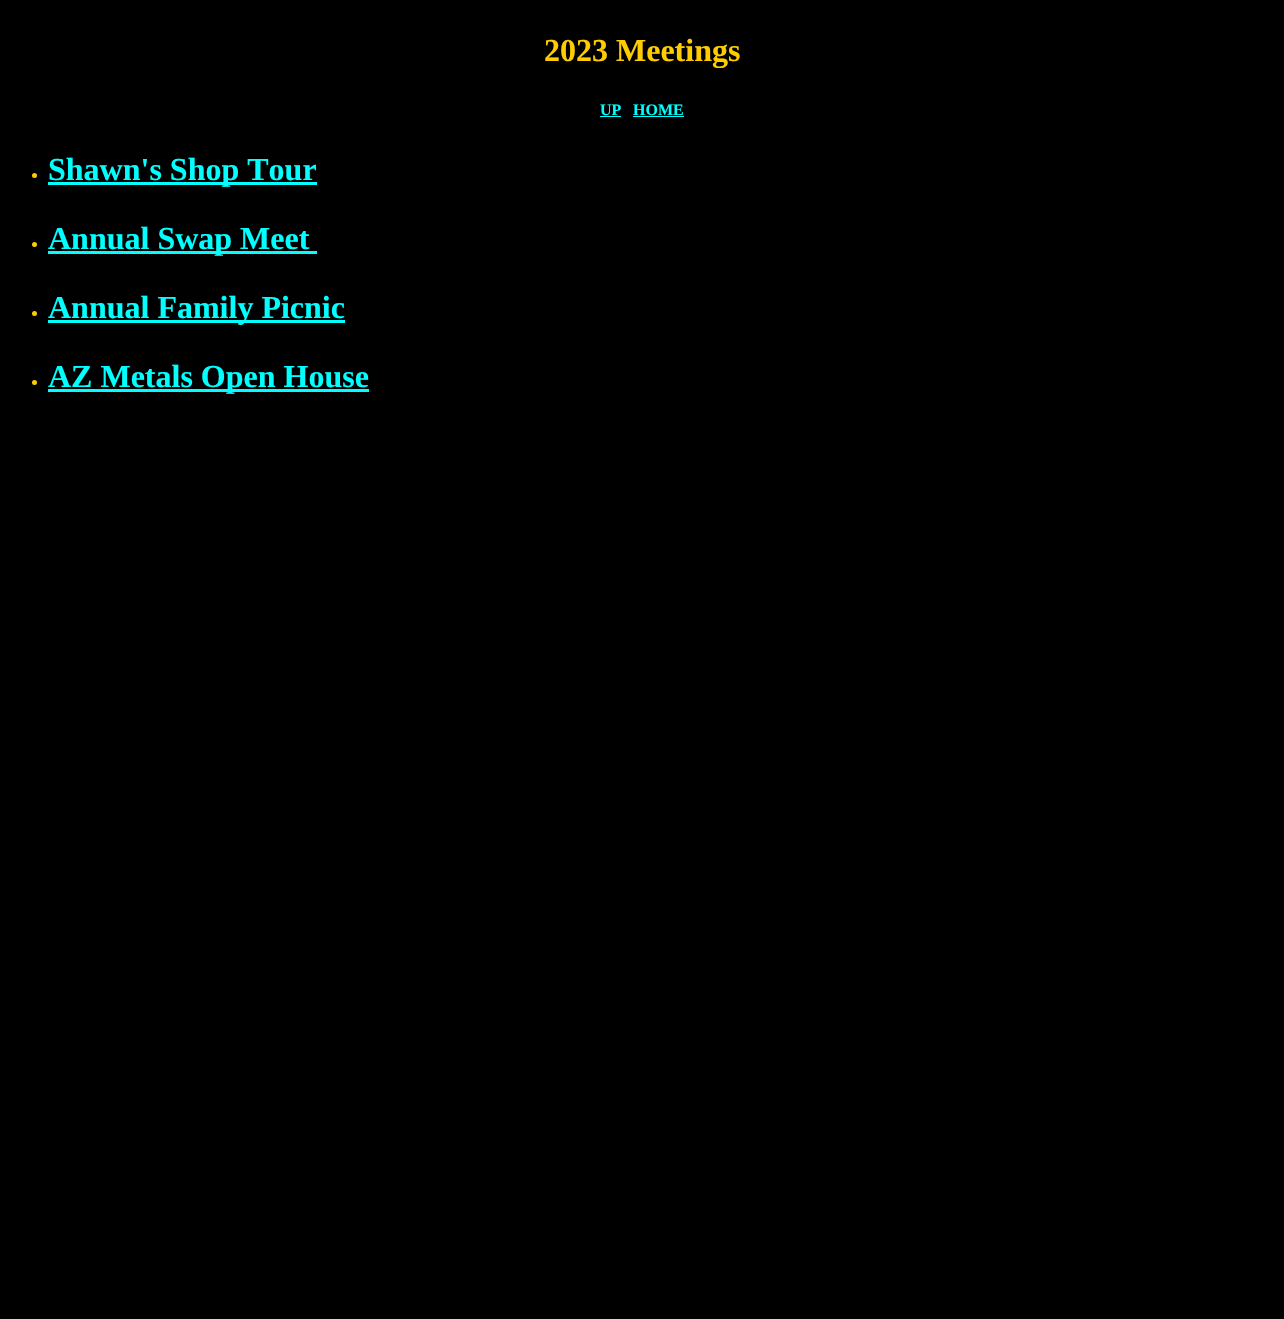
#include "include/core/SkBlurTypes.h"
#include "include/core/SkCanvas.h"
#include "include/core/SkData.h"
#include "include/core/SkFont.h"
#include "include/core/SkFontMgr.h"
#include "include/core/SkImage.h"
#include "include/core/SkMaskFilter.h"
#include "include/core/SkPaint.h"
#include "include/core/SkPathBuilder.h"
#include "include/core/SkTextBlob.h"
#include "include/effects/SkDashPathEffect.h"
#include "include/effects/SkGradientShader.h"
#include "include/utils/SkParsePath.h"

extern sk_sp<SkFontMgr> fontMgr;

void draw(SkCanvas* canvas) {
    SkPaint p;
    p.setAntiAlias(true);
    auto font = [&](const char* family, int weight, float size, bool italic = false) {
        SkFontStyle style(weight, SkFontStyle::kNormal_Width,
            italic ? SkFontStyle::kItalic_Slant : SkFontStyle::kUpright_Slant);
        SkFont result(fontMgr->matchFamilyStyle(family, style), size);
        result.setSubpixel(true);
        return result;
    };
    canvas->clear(0xFF000000);
    auto font1 = font("Liberation Serif", 700, 32);
    p.setColor(0xFFFFCC00);
    canvas->drawString("2023 Meetings", 544, 61, font1, p);
    auto font2 = font("Liberation Serif", 700, 16);
    p.setColor(0xFF00FFFF);
    canvas->drawString("UP", 600, 115, font2, p);
    canvas->drawRect(SkRect::MakeLTRB(600, 116, 621, 117), p);
    canvas->drawString("HOME", 633, 115, font2, p);
    canvas->drawRect(SkRect::MakeLTRB(633, 116, 684, 117), p);
    p.setColor(0xFFFFCC00);
    canvas->drawCircle(34.5f, 175.5f, 2.5f, p);
    p.setColor(0xFF00FFFF);
    canvas->drawRect(SkRect::MakeLTRB(48, 182, 317, 185), p);
    canvas->drawString("Shawn's Shop Tour", 48, 180, font1, p);
    p.setColor(0xFFFFCC00);
    canvas->drawCircle(34.5f, 244.5f, 2.5f, p);
    p.setColor(0xFF00FFFF);
    canvas->drawRect(SkRect::MakeLTRB(48, 251, 309, 254), p);
    canvas->drawString("Annual Swap Meet", 48, 249, font1, p);
    canvas->drawRect(SkRect::MakeLTRB(309, 251, 317, 254), p);
    p.setColor(0xFFFFCC00);
    canvas->drawCircle(34.5f, 313.5f, 2.5f, p);
    p.setColor(0xFF00FFFF);
    canvas->drawRect(SkRect::MakeLTRB(48, 320, 345, 323), p);
    canvas->drawString("Annual Family Picnic", 48, 318, font1, p);
    p.setColor(0xFFFFCC00);
    canvas->drawCircle(34.5f, 382.5f, 2.5f, p);
    p.setColor(0xFF00FFFF);
    canvas->drawRect(SkRect::MakeLTRB(48, 389, 369, 392), p);
    canvas->drawString("AZ Metals Open House", 48, 387, font1, p);
}
